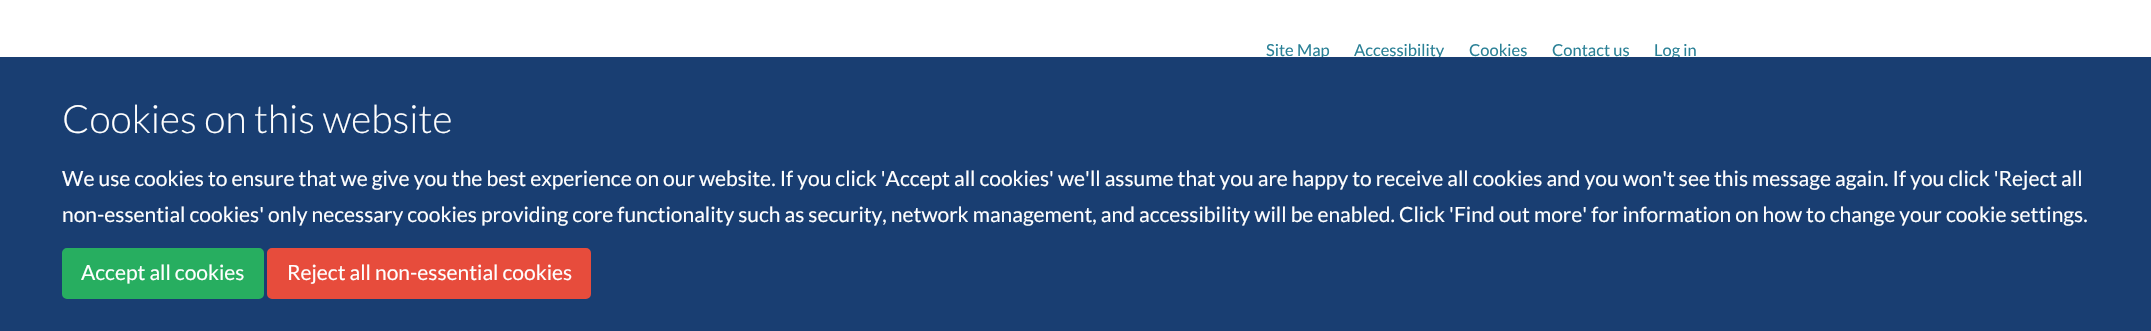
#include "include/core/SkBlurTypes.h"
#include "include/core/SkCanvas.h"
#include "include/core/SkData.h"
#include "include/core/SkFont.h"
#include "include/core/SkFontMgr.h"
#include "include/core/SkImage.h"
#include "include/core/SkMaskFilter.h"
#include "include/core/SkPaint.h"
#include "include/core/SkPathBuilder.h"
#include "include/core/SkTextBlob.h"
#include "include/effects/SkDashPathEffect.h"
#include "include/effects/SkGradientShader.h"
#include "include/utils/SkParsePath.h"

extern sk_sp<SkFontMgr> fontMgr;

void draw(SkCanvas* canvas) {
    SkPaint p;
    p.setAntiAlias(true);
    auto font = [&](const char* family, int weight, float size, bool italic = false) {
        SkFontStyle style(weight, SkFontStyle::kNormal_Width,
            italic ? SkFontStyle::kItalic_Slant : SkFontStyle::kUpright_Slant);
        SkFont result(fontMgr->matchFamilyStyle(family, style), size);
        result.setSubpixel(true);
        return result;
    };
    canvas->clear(0xFFFFFFFF);
    auto font1 = font("Lato", 400, 16.5f);
    p.setColor(0xFF298096);
    {
        const struct { const char* s; float x, y; } items[] = {
            {"Site Map", 1266, 56},
            {"Accessibility", 1354, 56},
            {"Cookies", 1469, 56},
            {"Contact us", 1552, 56},
            {"Log in", 1654, 56},
        };
        for (auto [s, x, y] : items) {
            canvas->drawString(s, x, y, font1, p);
        }
    }
    p.setColor(0xFF193E72);
    canvas->drawRect(SkRect::MakeLTRB(0, 57, 2151, 331), p);
    auto font2 = font("Lato", 300, 39);
    p.setColor(0xFFFFFFFF);
    canvas->drawString("Cookies on this website", 62, 133, font2, p);
    auto font3 = font("Lato", 400, 21);
    canvas->drawString("We use cookies to ensure that we give you the best experience on our website. If you click 'Accept all cookies' we'll assume that you are happy to receive all cookies and you won't see this message again. If you click 'Reject all", 62, 186, font3, p);
    canvas->drawString("non-essential cookies' only necessary cookies providing core functionality such as security, network management, and accessibility will be enabled. Click 'Find out more' for information on how to change your cookie settings.", 62, 222, font3, p);
    p.setColor(0xFF27AE60);
    canvas->drawRoundRect(SkRect::MakeLTRB(63, 249, 263, 298), 4, 4, p);
    p.setStyle(SkPaint::kStroke_Style);
    p.setStrokeWidth(2);
    canvas->drawRoundRect(SkRect::MakeLTRB(63, 249, 263, 298), 4, 4, p);
    p.setStyle(SkPaint::kFill_Style);
    p.setColor(0xFFFFFFFF);
    canvas->drawString("Accept all cookies", 81, 280, font3, p);
    p.setColor(0xFFE74C3C);
    canvas->drawRoundRect(SkRect::MakeLTRB(268, 249, 590, 298), 4, 4, p);
    p.setStyle(SkPaint::kStroke_Style);
    canvas->drawRoundRect(SkRect::MakeLTRB(268, 249, 590, 298), 4, 4, p);
    p.setStyle(SkPaint::kFill_Style);
    p.setColor(0xFFFFFFFF);
    canvas->drawString("Reject all non-essential cookies", 287, 280, font3, p);
}
